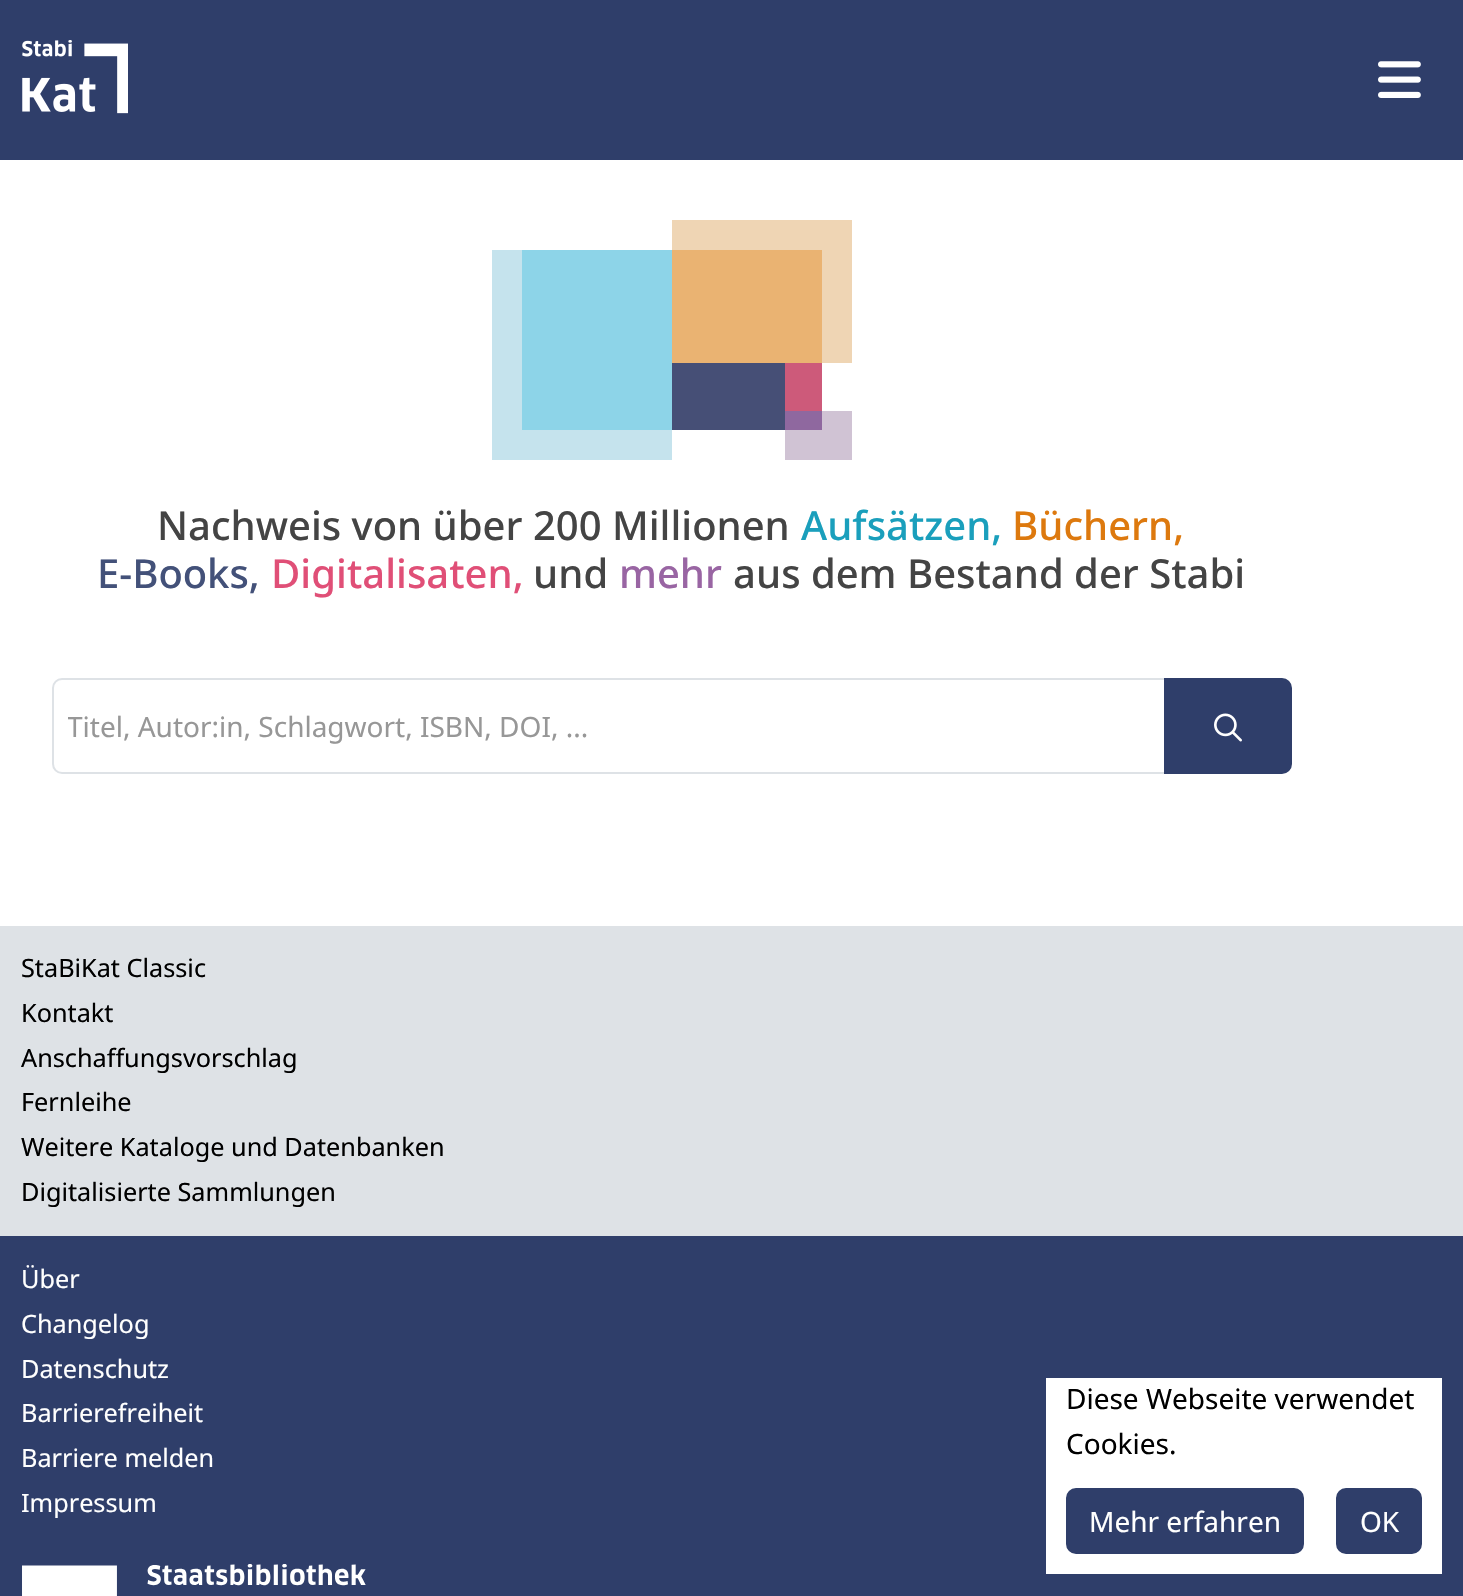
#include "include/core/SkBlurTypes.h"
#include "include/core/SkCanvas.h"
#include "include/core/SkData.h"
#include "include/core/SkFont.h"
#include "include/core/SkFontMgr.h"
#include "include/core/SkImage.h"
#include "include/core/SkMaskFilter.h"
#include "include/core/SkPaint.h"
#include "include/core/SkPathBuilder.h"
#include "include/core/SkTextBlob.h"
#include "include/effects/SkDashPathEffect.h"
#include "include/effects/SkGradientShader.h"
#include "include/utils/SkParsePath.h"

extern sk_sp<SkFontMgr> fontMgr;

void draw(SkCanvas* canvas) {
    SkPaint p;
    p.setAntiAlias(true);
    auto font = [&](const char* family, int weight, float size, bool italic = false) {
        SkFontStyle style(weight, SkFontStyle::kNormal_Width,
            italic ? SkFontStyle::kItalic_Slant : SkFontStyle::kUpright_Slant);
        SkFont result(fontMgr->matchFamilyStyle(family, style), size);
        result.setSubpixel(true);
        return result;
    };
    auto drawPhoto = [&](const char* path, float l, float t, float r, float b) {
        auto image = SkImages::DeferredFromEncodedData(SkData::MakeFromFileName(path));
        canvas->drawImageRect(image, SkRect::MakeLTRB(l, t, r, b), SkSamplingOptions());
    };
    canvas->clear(0xFFFFFFFF);
    p.setColor(0xFF2F3E6A);
    canvas->drawRect(SkRect::MakeLTRB(0, 0, 1463, 160), p);
    drawPhoto("media/1.png", 22, 40, 128, 114);
    drawPhoto("media/2.png", 1378, 61, 1421, 98);
    {
        const struct { float l, t, r, b; SkColor color; } items[] = {
            {672, 220, 852, 250, 0xFFEFD5B4},
            {492, 250, 522, 460, 0xFFC5E3ED},
            {522, 250, 672, 430, 0xFF8DD4E8},
            {672, 250, 822, 363, 0xFFEAB372},
            {822, 250, 852, 363, 0xFFEFD5B4},
            {672, 363, 785, 430, 0xFF464F76},
            {785, 363, 822, 411, 0xFFCD5A7A},
            {785, 411, 822, 430, 0xFF8F689F},
            {822, 411, 852, 430, 0xFFD0C3D4},
            {522, 430, 672, 460, 0xFFC5E3ED},
            {785, 430, 852, 460, 0xFFD0C3D4},
        };
        for (auto [l, t, r, b, color] : items) {
            p.setColor(color);
            canvas->drawRect(SkRect::MakeLTRB(l, t, r, b), p);
        }
    }
    auto font1 = font("Noto Sans", 500, 40);
    p.setColor(0xFF444444);
    canvas->drawString("Nachweis von über 200 Millionen", 157, 540, font1, p);
    p.setColor(0xFF1A9FBC);
    canvas->drawString("Aufsätzen,", 801, 540, font1, p);
    p.setColor(0xFFDD790E);
    canvas->drawString("Büchern,", 1012, 540, font1, p);
    p.setColor(0xFF435179);
    canvas->drawString("E-Books,", 97, 588, font1, p);
    p.setColor(0xFFE04F77);
    canvas->drawString("Digitalisaten,", 271, 588, font1, p);
    p.setColor(0xFF444444);
    canvas->drawString("und", 533, 588, font1, p);
    p.setColor(0xFF9965A3);
    canvas->drawString("mehr", 619, 588, font1, p);
    p.setColor(0xFF444444);
    canvas->drawString("aus dem Bestand der Stabi", 733, 588, font1, p);
    p.setStyle(SkPaint::kStroke_Style);
    p.setStrokeWidth(2);
    p.setColor(0xFFDEE2E6);
    canvas->drawPath(SkPathBuilder().moveTo(62, 679).lineTo(1165, 679).lineTo(1165, 773).lineTo(62, 773).cubicTo(57, 773, 53, 769, 53, 764).lineTo(53, 688).cubicTo(53, 683, 57, 679, 62, 679).close().detach(), p);
    canvas->save();
    canvas->clipRect(SkRect::MakeLTRB(68, 708, 1088, 746));
    auto font2 = font("Noto Sans", 400, 28);
    p.setStyle(SkPaint::kFill_Style);
    p.setColor(0xFF979797);
    canvas->drawString("Titel, Autor:in, Schlagwort, ISBN, DOI, ...", 67, 737, font2, p);
    canvas->restore();
    p.setColor(0xFF2F3E6A);
    canvas->drawPath(SkPathBuilder().moveTo(1165, 679).lineTo(1282, 679).cubicTo(1287, 679, 1291, 683, 1291, 688).lineTo(1291, 764).cubicTo(1291, 769, 1287, 773, 1282, 773).lineTo(1165, 773).close().detach(), p);
    p.setStyle(SkPaint::kStroke_Style);
    canvas->drawPath(SkPathBuilder().moveTo(1165, 679).lineTo(1282, 679).cubicTo(1287, 679, 1291, 683, 1291, 688).lineTo(1291, 764).cubicTo(1291, 769, 1287, 773, 1282, 773).lineTo(1165, 773).close().detach(), p);
    drawPhoto("media/3.png", 1214, 713, 1242, 742);
    p.setStyle(SkPaint::kFill_Style);
    p.setColor(0xFFDEE2E6);
    canvas->drawRect(SkRect::MakeLTRB(0, 926, 1463, 1236), p);
    auto font3 = font("Noto Sans", 400, 25.25f);
    p.setColor(0xFF000000);
    {
        const struct { const char* s; float x, y; } items[] = {
            {"StaBiKat Classic", 21, 977},
            {"Kontakt", 21, 1022},
            {"Anschaffungsvorschlag", 21, 1067},
            {"Fernleihe", 21, 1111},
            {"Weitere Kataloge und Datenbanken", 21, 1156},
            {"Digitalisierte Sammlungen", 21, 1201},
        };
        for (auto [s, x, y] : items) {
            canvas->drawString(s, x, y, font3, p);
        }
    }
    p.setColor(0xFF2F3E6A);
    canvas->drawRect(SkRect::MakeLTRB(0, 1236, 1463, 1596), p);
    p.setColor(0xFFFFFFFF);
    {
        const struct { const char* s; float x, y; } items[] = {
            {"Über", 21, 1288},
            {"Changelog", 21, 1333},
            {"Datenschutz", 21, 1378},
            {"Barrierefreiheit", 21, 1422},
            {"Barriere melden", 21, 1467},
            {"Impressum", 21, 1512},
        };
        for (auto [s, x, y] : items) {
            canvas->drawString(s, x, y, font3, p);
        }
    }
    drawPhoto("media/4.png", 22, 1564, 366, 1596);
    canvas->drawRect(SkRect::MakeLTRB(1046, 1378, 1442, 1574), p);
    p.setColor(0xFF000000);
    canvas->drawString("Diese Webseite verwendet", 1066, 1409, font2, p);
    canvas->drawString("Cookies.", 1066, 1454, font2, p);
    p.setColor(0xFF2F3E6A);
    canvas->drawRoundRect(SkRect::MakeLTRB(1067, 1489, 1303, 1553), 9, 9, p);
    p.setStyle(SkPaint::kStroke_Style);
    canvas->drawRoundRect(SkRect::MakeLTRB(1067, 1489, 1303, 1553), 9, 9, p);
    p.setStyle(SkPaint::kFill_Style);
    p.setColor(0xFFFFFFFF);
    canvas->drawString("Mehr erfahren", 1089, 1532, font2, p);
    p.setColor(0xFF2F3E6A);
    canvas->drawRoundRect(SkRect::MakeLTRB(1337, 1489, 1421, 1553), 9, 9, p);
    p.setStyle(SkPaint::kStroke_Style);
    canvas->drawRoundRect(SkRect::MakeLTRB(1337, 1489, 1421, 1553), 9, 9, p);
    p.setStyle(SkPaint::kFill_Style);
    p.setColor(0xFFFFFFFF);
    canvas->drawString("OK", 1360, 1532, font2, p);
}
